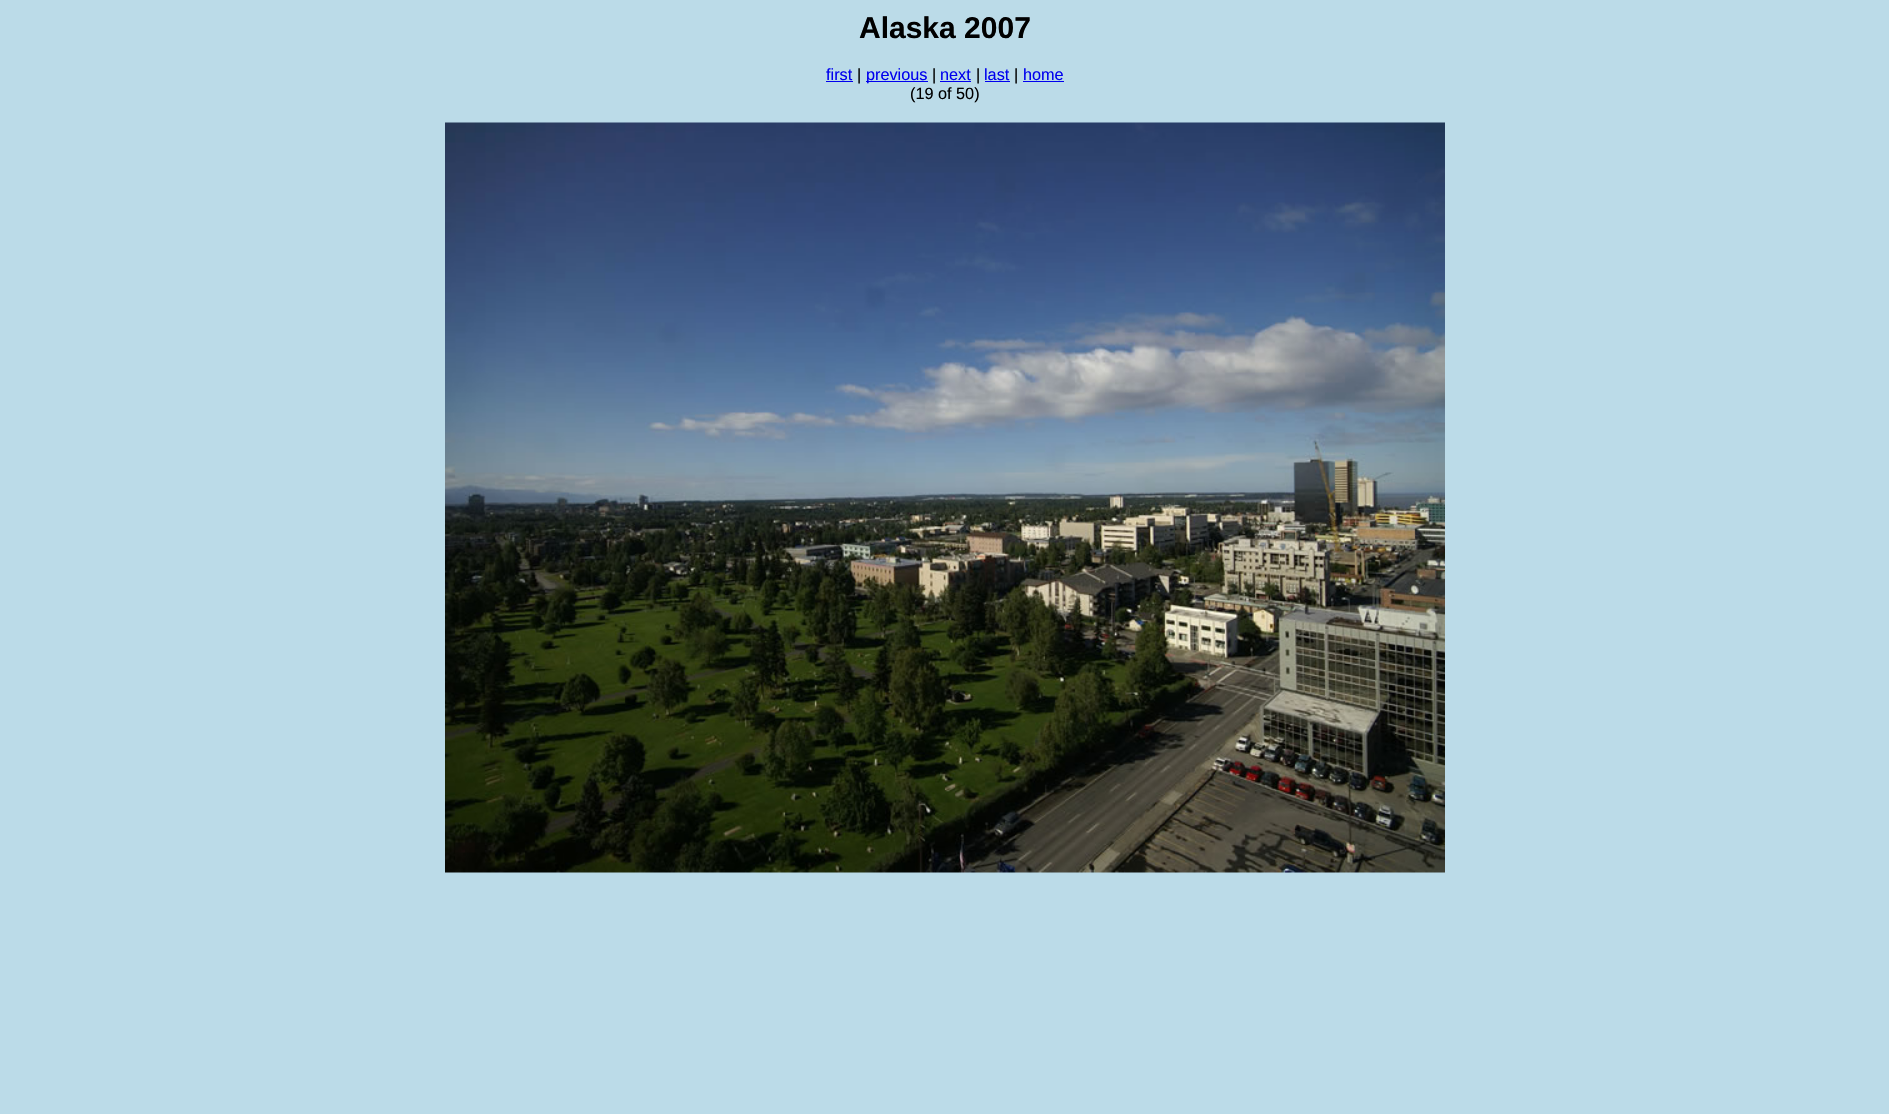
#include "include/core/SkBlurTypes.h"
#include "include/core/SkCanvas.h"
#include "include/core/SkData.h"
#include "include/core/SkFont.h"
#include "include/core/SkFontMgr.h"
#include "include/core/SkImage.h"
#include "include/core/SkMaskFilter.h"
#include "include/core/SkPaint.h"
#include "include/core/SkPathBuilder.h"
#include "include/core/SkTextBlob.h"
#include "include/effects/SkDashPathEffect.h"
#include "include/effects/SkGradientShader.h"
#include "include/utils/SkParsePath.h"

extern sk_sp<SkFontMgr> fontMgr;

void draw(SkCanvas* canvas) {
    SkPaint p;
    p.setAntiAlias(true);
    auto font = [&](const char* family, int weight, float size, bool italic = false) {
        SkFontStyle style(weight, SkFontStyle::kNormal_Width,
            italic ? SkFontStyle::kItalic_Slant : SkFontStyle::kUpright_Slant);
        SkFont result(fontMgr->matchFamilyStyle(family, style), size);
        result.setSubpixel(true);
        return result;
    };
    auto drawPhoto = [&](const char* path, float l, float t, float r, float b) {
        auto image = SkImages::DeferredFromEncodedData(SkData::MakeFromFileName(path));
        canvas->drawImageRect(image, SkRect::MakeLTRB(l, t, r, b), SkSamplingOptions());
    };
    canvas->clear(0xFFBBDBE8);
    auto font1 = font("Liberation Sans", 700, 30);
    p.setColor(0xFF000000);
    canvas->drawString("Alaska 2007", 859, 38, font1, p);
    auto font2 = font("Liberation Sans", 400, 16.25f);
    p.setColor(0xFF0000EE);
    canvas->drawString("first", 826, 80, font2, p);
    canvas->drawRect(SkRect::MakeLTRB(826, 81, 853, 82), p);
    p.setColor(0xFF000000);
    canvas->drawString("|", 857, 80, font2, p);
    p.setColor(0xFF0000EE);
    canvas->drawRect(SkRect::MakeLTRB(866, 81, 928, 82), p);
    canvas->drawString("previous", 866, 80, font2, p);
    p.setColor(0xFF000000);
    canvas->drawString("|", 932, 80, font2, p);
    p.setColor(0xFF0000EE);
    canvas->drawString("next", 940, 80, font2, p);
    canvas->drawRect(SkRect::MakeLTRB(940, 81, 971, 82), p);
    p.setColor(0xFF000000);
    canvas->drawString("|", 976, 80, font2, p);
    p.setColor(0xFF0000EE);
    canvas->drawString("last", 984, 80, font2, p);
    canvas->drawRect(SkRect::MakeLTRB(985, 81, 1010, 82), p);
    p.setColor(0xFF000000);
    canvas->drawString("|", 1014, 80, font2, p);
    p.setColor(0xFF0000EE);
    canvas->drawString("home", 1023, 80, font2, p);
    canvas->drawRect(SkRect::MakeLTRB(1023, 81, 1064, 82), p);
    p.setColor(0xFF000000);
    canvas->drawString("(19 of 50)", 910, 99, font2, p);
    drawPhoto("media/1.png", 445, 122, 1445, 873);
}
